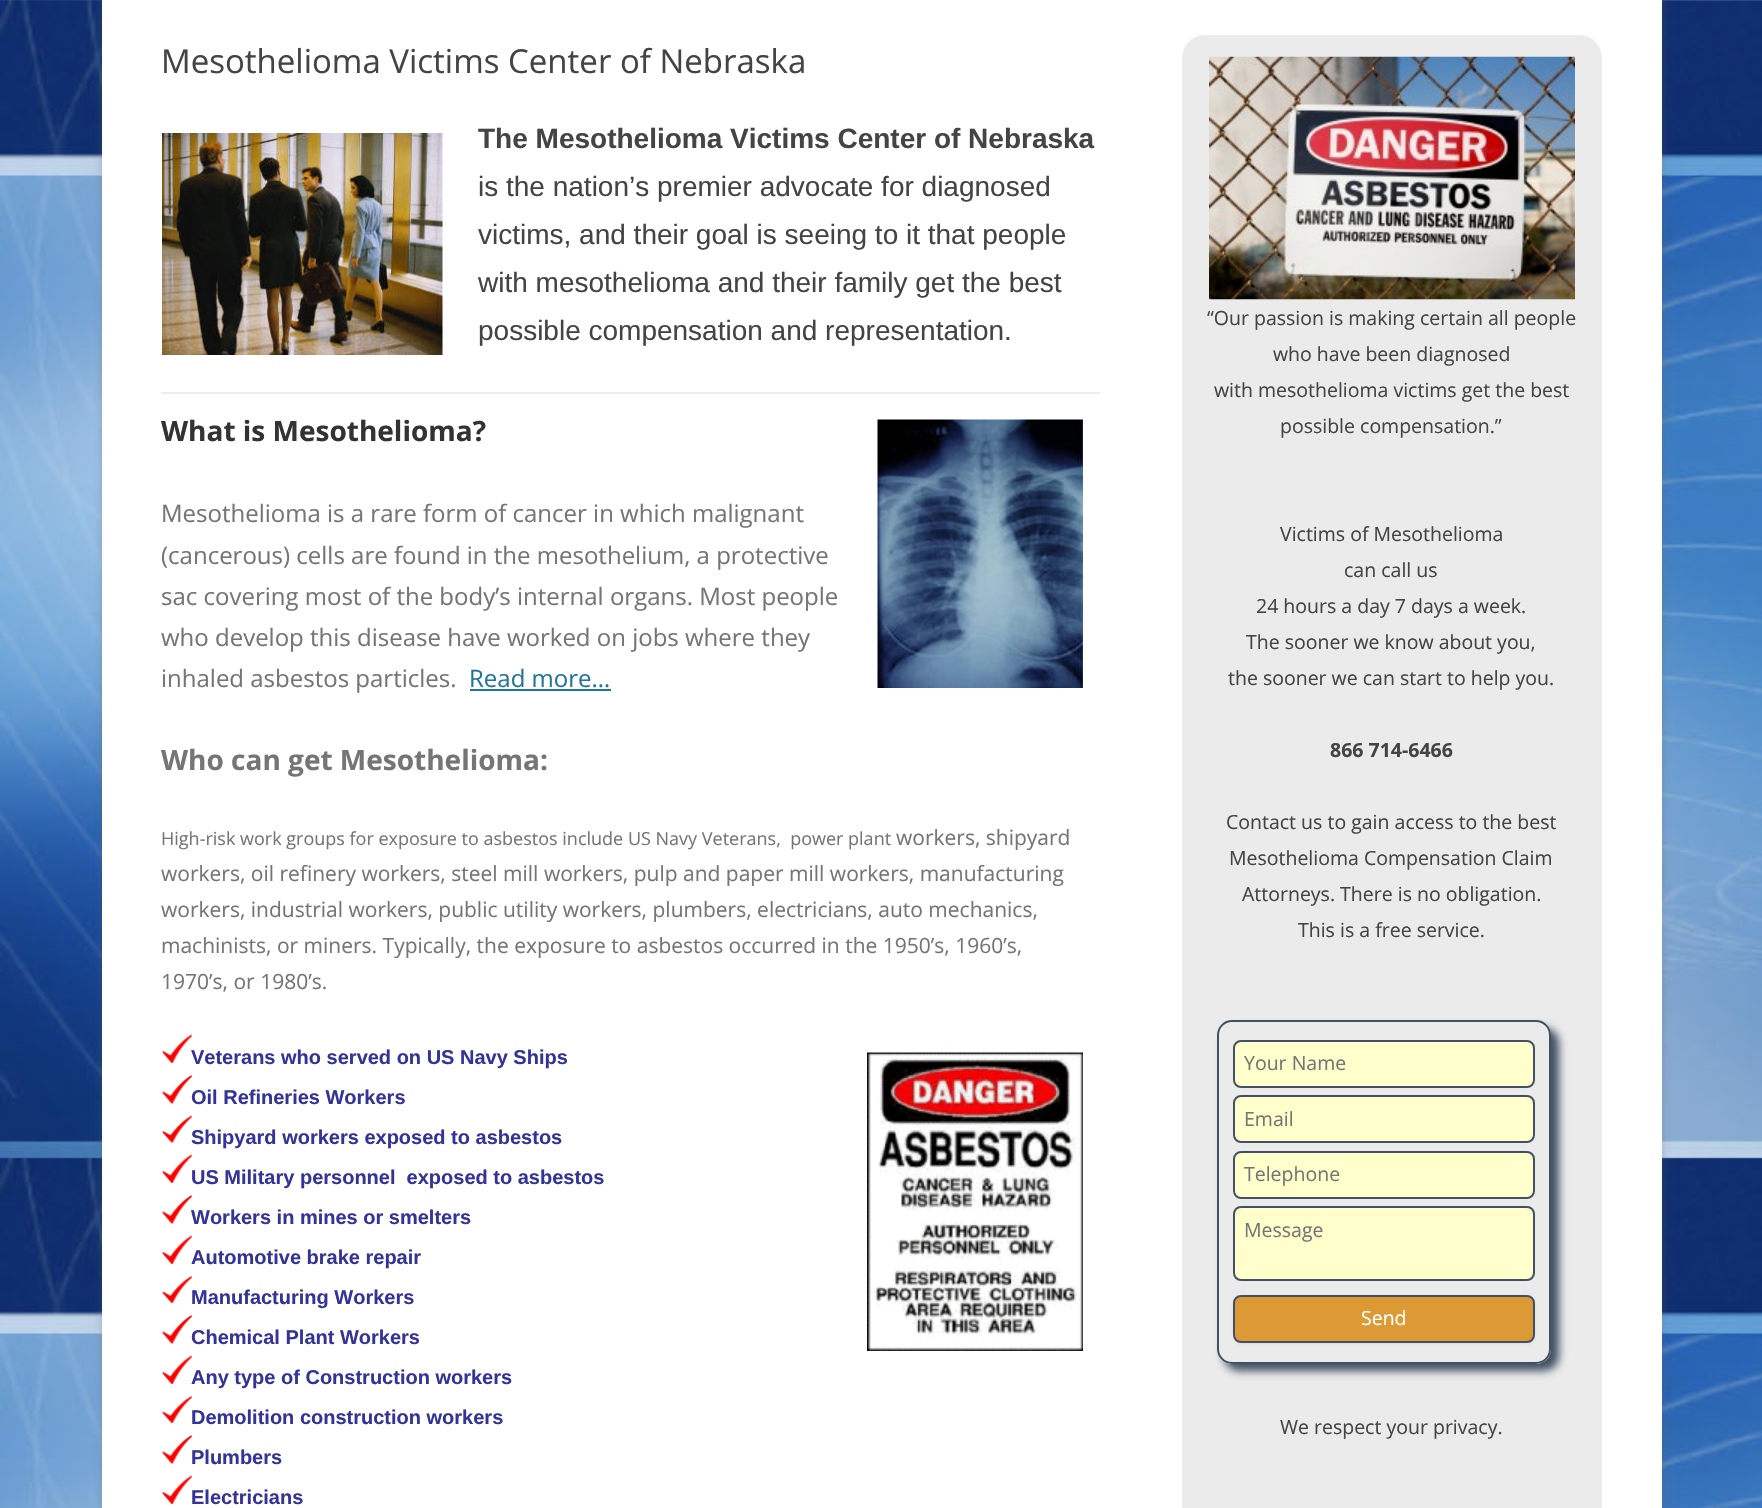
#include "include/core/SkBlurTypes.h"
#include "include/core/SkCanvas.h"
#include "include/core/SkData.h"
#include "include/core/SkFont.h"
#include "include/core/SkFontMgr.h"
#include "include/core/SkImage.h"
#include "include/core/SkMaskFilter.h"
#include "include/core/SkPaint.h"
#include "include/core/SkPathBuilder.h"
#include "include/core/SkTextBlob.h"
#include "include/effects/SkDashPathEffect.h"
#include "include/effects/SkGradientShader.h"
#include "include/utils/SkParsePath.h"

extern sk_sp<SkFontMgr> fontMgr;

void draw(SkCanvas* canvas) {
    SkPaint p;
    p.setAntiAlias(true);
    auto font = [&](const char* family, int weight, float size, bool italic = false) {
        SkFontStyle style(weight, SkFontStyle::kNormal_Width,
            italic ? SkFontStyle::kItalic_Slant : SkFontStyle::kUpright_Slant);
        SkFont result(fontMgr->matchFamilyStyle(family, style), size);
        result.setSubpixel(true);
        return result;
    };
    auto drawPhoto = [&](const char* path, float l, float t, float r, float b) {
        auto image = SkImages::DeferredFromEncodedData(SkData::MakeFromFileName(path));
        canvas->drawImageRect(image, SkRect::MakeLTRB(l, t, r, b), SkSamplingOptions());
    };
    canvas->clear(0xFFFFFFFF);
    drawPhoto("media/1.png", 0, 0, 1762, 1508);
    p.setColor(0x4D646464);
    p.setMaskFilter(SkMaskFilter::MakeBlur(kNormal_SkBlurStyle, 4.5f));
    canvas->drawRect(SkRect::MakeLTRB(102, -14, 1662, 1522), p);
    p.setMaskFilter(nullptr);
    p.setColor(0xFFFFFFFF);
    canvas->drawRect(SkRect::MakeLTRB(102, 0, 1662, 1508), p);
    auto font1 = font("Open Sans", 400, 33);
    p.setColor(0xFF444444);
    canvas->drawString("Mesothelioma Victims Center of Nebraska", 161, 73, font1, p);
    drawPhoto("media/2.png", 162, 133, 443, 355);
    auto font2 = font("Liberation Sans", 700, 28);
    canvas->drawString("The Mesothelioma Victims Center of Nebraska", 478, 148, font2, p);
    auto font3 = font("Liberation Sans", 400, 28);
    {
        const struct { const char* s; float x, y; } items[] = {
            {"is the nation’s premier advocate for diagnosed", 478, 196},
            {"victims, and their goal is seeing to it that people", 478, 244},
            {"with mesothelioma and their family get the best", 478, 292},
            {"possible compensation and representation.", 478, 340},
        };
        for (auto [s, x, y] : items) {
            canvas->drawString(s, x, y, font3, p);
        }
    }
    p.setColor(0xFFEDEDED);
    canvas->drawRect(SkRect::MakeLTRB(161, 392, 1100, 394), p);
    auto font4 = font("Open Sans", 700, 28);
    p.setColor(0xFF333333);
    canvas->drawString("What is Mesothelioma?", 161, 441, font4, p);
    drawPhoto("media/3.png", 877, 419, 1083, 688);
    auto font5 = font("Open Sans", 400, 24);
    p.setColor(0xFF757575);
    {
        const struct { const char* s; float x, y; } items[] = {
            {"Mesothelioma is a rare form of cancer in which malignant", 161, 522},
            {"(cancerous) cells are found in the mesothelium, a protective", 161, 564},
            {"sac covering most of the body’s internal organs. Most people", 161, 605},
            {"who develop this disease have worked on jobs where they", 161, 646},
            {"inhaled asbestos particles.", 161, 687},
        };
        for (auto [s, x, y] : items) {
            canvas->drawString(s, x, y, font5, p);
        }
    }
    p.setColor(0xFF21759B);
    canvas->drawString("Read more…", 469, 687, font5, p);
    canvas->drawRect(SkRect::MakeLTRB(470, 689, 611, 691), p);
    p.setColor(0xFF757575);
    canvas->drawString("Who can get Mesothelioma:", 161, 770, font4, p);
    auto font6 = font("Open Sans", 400, 18);
    canvas->drawString("High-risk work groups for exposure to asbestos include US Navy Veterans,  power plant", 161, 845, font6, p);
    auto font7 = font("Open Sans", 400, 21);
    {
        const struct { const char* s; float x, y; } items[] = {
            {"workers, shipyard", 896, 845},
            {"workers, oil refinery workers, steel mill workers, pulp and paper mill workers, manufacturing", 161, 881},
            {"workers, industrial workers, public utility workers, plumbers, electricians, auto mechanics,", 161, 917},
            {"machinists, or miners. Typically, the exposure to asbestos occurred in the 1950’s, 1960’s,", 161, 953},
            {"1970’s, or 1980’s.", 161, 989},
        };
        for (auto [s, x, y] : items) {
            canvas->drawString(s, x, y, font7, p);
        }
    }
    drawPhoto("media/4.png", 162, 1034, 192, 1063);
    auto font8 = font("Liberation Sans", 700, 20);
    p.setColor(0xFF333399);
    canvas->drawString("Veterans who served on US Navy Ships", 191, 1064, font8, p);
    drawPhoto("media/5.png", 867, 1052, 1083, 1351);
    drawPhoto("media/6.png", 162, 1075, 192, 1104);
    canvas->drawString("Oil Refineries Workers", 191, 1104, font8, p);
    drawPhoto("media/7.png", 162, 1115, 192, 1143);
    canvas->drawString("Shipyard workers exposed to asbestos", 191, 1144, font8, p);
    drawPhoto("media/4.png", 162, 1154, 192, 1183);
    canvas->drawString("US Military personnel  exposed to asbestos", 191, 1184, font8, p);
    drawPhoto("media/6.png", 162, 1195, 192, 1224);
    canvas->drawString("Workers in mines or smelters", 191, 1224, font8, p);
    drawPhoto("media/4.png", 162, 1235, 192, 1264);
    canvas->drawString("Automotive brake repair", 191, 1264, font8, p);
    drawPhoto("media/8.png", 162, 1276, 192, 1303);
    canvas->drawString("Manufacturing Workers", 191, 1304, font8, p);
    drawPhoto("media/6.png", 162, 1315, 192, 1344);
    canvas->drawString("Chemical Plant Workers", 191, 1344, font8, p);
    drawPhoto("media/4.png", 162, 1355, 192, 1384);
    canvas->drawString("Any type of Construction workers", 191, 1384, font8, p);
    drawPhoto("media/8.png", 162, 1396, 192, 1423);
    canvas->drawString("Demolition construction workers", 191, 1424, font8, p);
    drawPhoto("media/6.png", 162, 1435, 192, 1464);
    canvas->drawString("Plumbers", 191, 1464, font8, p);
    drawPhoto("media/4.png", 162, 1475, 192, 1504);
    canvas->drawString("Electricians", 191, 1504, font8, p);
    p.setColor(0xFFEBEBEB);
    canvas->drawRoundRect(SkRect::MakeLTRB(1182, 35, 1602, 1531), 23, 23, p);
    drawPhoto("media/9.png", 1209, 56, 1575, 300);
    auto font9 = font("Open Sans", 400, 19.5f);
    p.setColor(0xFF444444);
    {
        const struct { const char* s; float x, y; } items[] = {
            {"“Our passion is making certain all people", 1207, 325},
            {"who have been diagnosed", 1273, 361},
            {"with mesothelioma victims get the best", 1214, 397},
            {"possible compensation.”", 1280, 433},
            {"Victims of Mesothelioma", 1280, 541},
            {"can call us", 1344, 577},
            {"24 hours a day 7 days a week.", 1256, 613},
            {"The sooner we know about you,", 1246, 649},
            {"the sooner we can start to help you.", 1228, 685},
        };
        for (auto [s, x, y] : items) {
            canvas->drawString(s, x, y, font9, p);
        }
    }
    auto font10 = font("Open Sans", 700, 19.5f);
    canvas->drawString("866 714-6466", 1330, 757, font10, p);
    {
        const struct { const char* s; float x, y; } items[] = {
            {"Contact us to gain access to the best", 1226, 829},
            {"Mesothelioma Compensation Claim", 1229, 865},
            {"Attorneys. There is no obligation.", 1242, 901},
            {"This is a free service.", 1298, 937},
        };
        for (auto [s, x, y] : items) {
            canvas->drawString(s, x, y, font9, p);
        }
    }
    canvas->save();
    canvas->clipPath(SkPathBuilder(SkPathFillType::kEvenOdd).moveTo(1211, 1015).lineTo(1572, 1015).lineTo(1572, 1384).lineTo(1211, 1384).close().moveTo(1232, 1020).lineTo(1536, 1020).cubicTo(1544.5f, 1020, 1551, 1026.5f, 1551, 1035).lineTo(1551, 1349).cubicTo(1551, 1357.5f, 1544.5f, 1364, 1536, 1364).lineTo(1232, 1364).cubicTo(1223.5f, 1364, 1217, 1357.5f, 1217, 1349).lineTo(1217, 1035).cubicTo(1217, 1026.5f, 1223.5f, 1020, 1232, 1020).close().detach(), true);
    p.setColor(0xFF415063);
    p.setMaskFilter(SkMaskFilter::MakeBlur(kNormal_SkBlurStyle, 4));
    canvas->drawRoundRect(SkRect::MakeLTRB(1224, 1028, 1559, 1371), 15, 15, p);
    p.setMaskFilter(nullptr);
    canvas->restore();
    p.setStyle(SkPaint::kStroke_Style);
    p.setStrokeWidth(2);
    canvas->drawRoundRect(SkRect::MakeLTRB(1218, 1021, 1550, 1363), 14, 14, p);
    p.setStyle(SkPaint::kFill_Style);
    p.setColor(0xFFFFFFCC);
    canvas->drawRoundRect(SkRect::MakeLTRB(1234, 1041, 1534, 1087), 7, 7, p);
    p.setStyle(SkPaint::kStroke_Style);
    p.setColor(0xFF415063);
    canvas->drawRoundRect(SkRect::MakeLTRB(1234, 1041, 1534, 1087), 7, 7, p);
    p.setStyle(SkPaint::kFill_Style);
    p.setColor(0xFF757575);
    canvas->drawString("Your Name", 1244, 1070, font9, p);
    p.setColor(0xFFFFFFCC);
    canvas->drawRoundRect(SkRect::MakeLTRB(1234, 1096, 1534, 1142), 7, 7, p);
    p.setStyle(SkPaint::kStroke_Style);
    p.setColor(0xFF415063);
    canvas->drawRoundRect(SkRect::MakeLTRB(1234, 1096, 1534, 1142), 7, 7, p);
    p.setStyle(SkPaint::kFill_Style);
    p.setColor(0xFF757575);
    canvas->drawString("Email", 1244, 1126, font9, p);
    p.setColor(0xFFFFFFCC);
    canvas->drawRoundRect(SkRect::MakeLTRB(1234, 1152, 1534, 1198), 7, 7, p);
    p.setStyle(SkPaint::kStroke_Style);
    p.setColor(0xFF415063);
    canvas->drawRoundRect(SkRect::MakeLTRB(1234, 1152, 1534, 1198), 7, 7, p);
    p.setStyle(SkPaint::kFill_Style);
    p.setColor(0xFF757575);
    canvas->drawString("Telephone", 1244, 1181, font9, p);
    p.setColor(0xFFFFFFCC);
    canvas->drawRoundRect(SkRect::MakeLTRB(1234, 1207, 1534, 1280), 7, 7, p);
    p.setStyle(SkPaint::kStroke_Style);
    p.setColor(0xFF415063);
    canvas->drawRoundRect(SkRect::MakeLTRB(1234, 1207, 1534, 1280), 7, 7, p);
    p.setStyle(SkPaint::kFill_Style);
    p.setColor(0xFF757575);
    canvas->drawString("Message", 1244, 1237, font9, p);
    p.setColor(0x1A404040);
    p.setMaskFilter(SkMaskFilter::MakeBlur(kNormal_SkBlurStyle, 1.5f));
    canvas->drawRoundRect(SkRect::MakeLTRB(1233, 1296, 1535, 1344), 8, 8, p);
    p.setMaskFilter(nullptr);
    p.setColor(0xFFDD9933);
    canvas->drawRoundRect(SkRect::MakeLTRB(1234, 1296, 1534, 1342), 7, 7, p);
    p.setStyle(SkPaint::kStroke_Style);
    p.setColor(0xFF415063);
    canvas->drawRoundRect(SkRect::MakeLTRB(1234, 1296, 1534, 1342), 7, 7, p);
    p.setStyle(SkPaint::kFill_Style);
    p.setColor(0xFFFFFFFF);
    canvas->drawString("Send", 1361, 1325, font9, p);
    p.setColor(0xFF444444);
    canvas->drawString("We respect your privacy.", 1280, 1434, font9, p);
}
